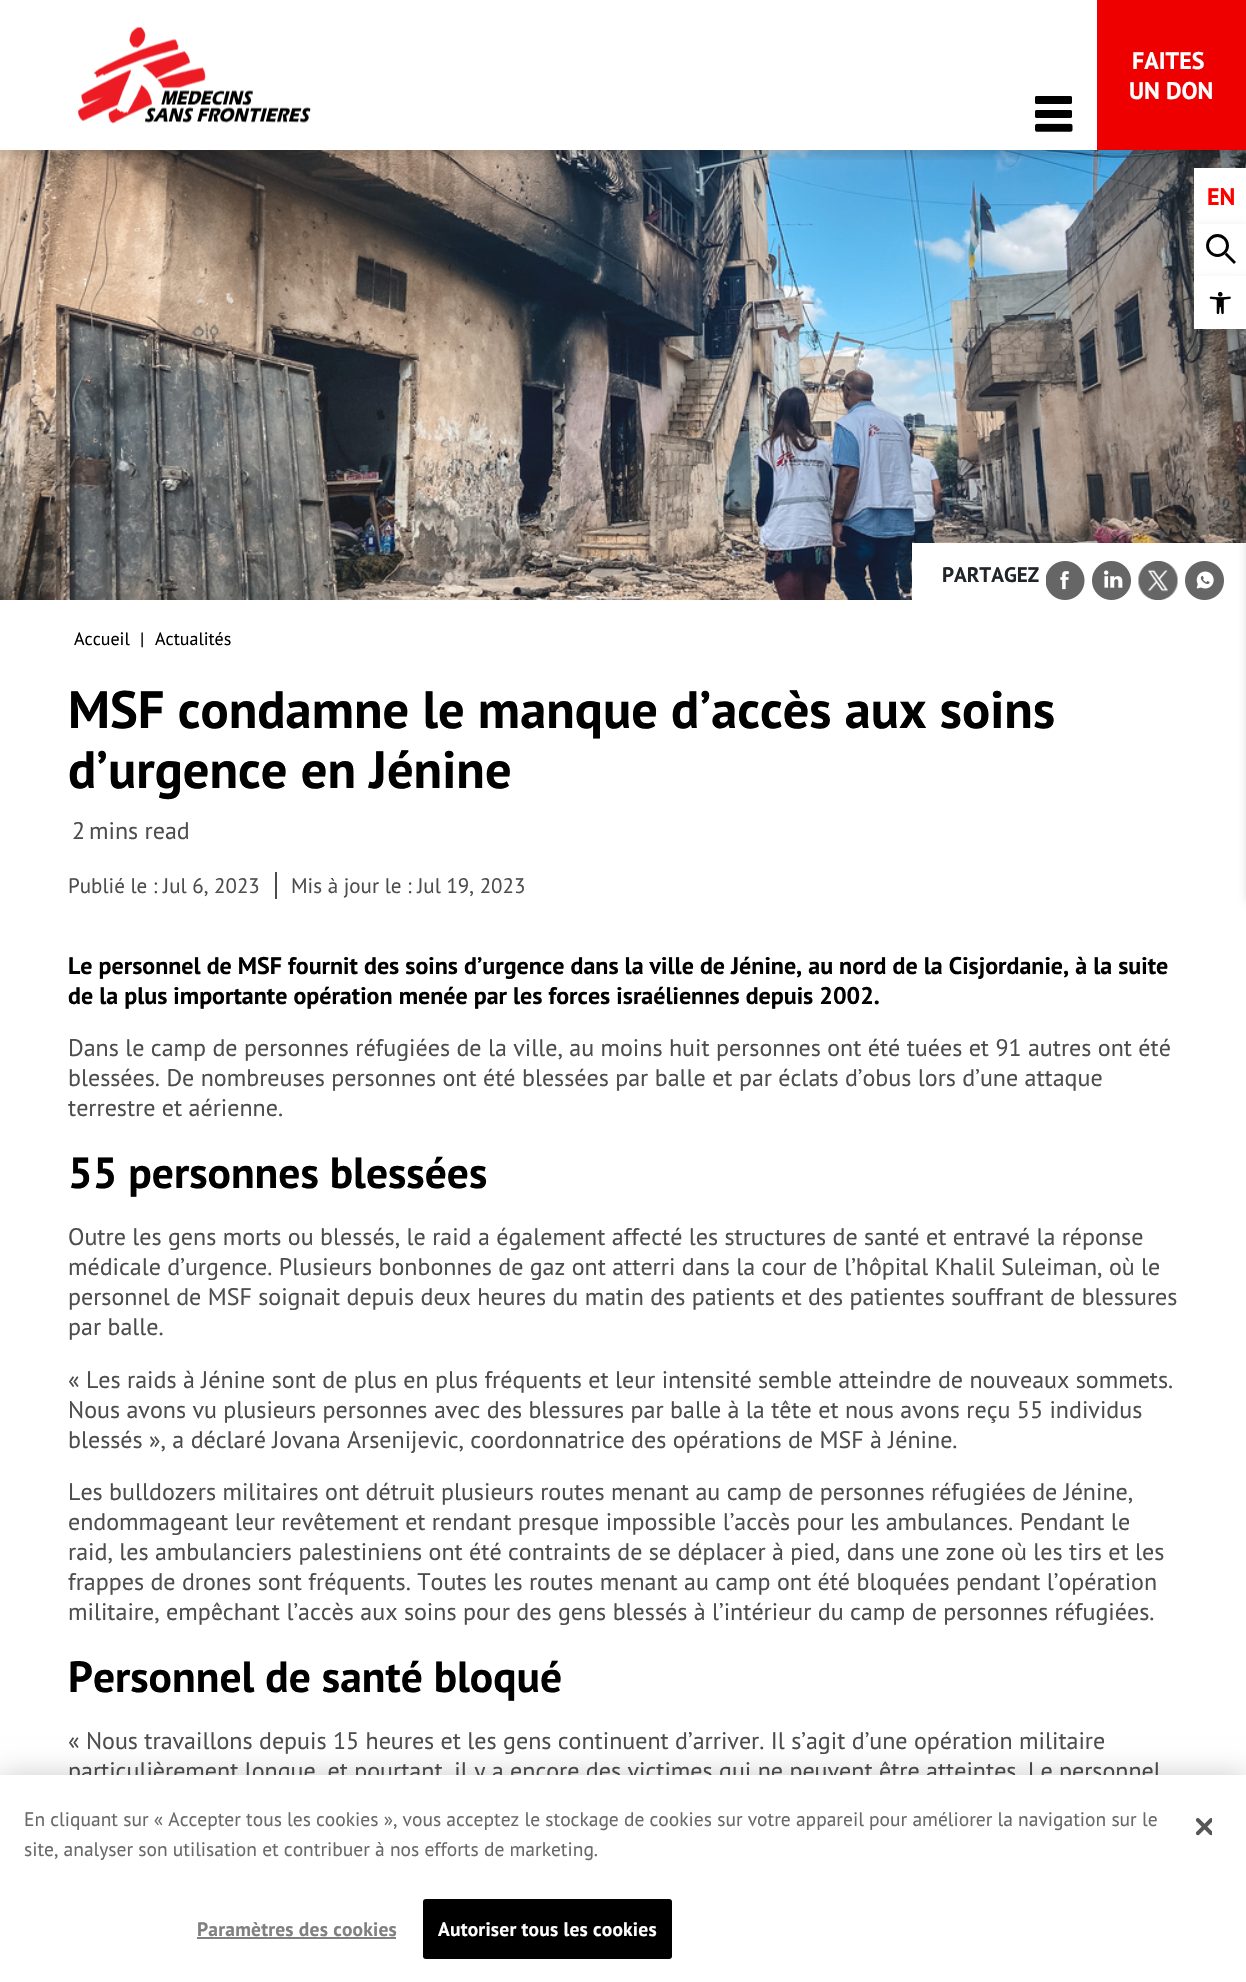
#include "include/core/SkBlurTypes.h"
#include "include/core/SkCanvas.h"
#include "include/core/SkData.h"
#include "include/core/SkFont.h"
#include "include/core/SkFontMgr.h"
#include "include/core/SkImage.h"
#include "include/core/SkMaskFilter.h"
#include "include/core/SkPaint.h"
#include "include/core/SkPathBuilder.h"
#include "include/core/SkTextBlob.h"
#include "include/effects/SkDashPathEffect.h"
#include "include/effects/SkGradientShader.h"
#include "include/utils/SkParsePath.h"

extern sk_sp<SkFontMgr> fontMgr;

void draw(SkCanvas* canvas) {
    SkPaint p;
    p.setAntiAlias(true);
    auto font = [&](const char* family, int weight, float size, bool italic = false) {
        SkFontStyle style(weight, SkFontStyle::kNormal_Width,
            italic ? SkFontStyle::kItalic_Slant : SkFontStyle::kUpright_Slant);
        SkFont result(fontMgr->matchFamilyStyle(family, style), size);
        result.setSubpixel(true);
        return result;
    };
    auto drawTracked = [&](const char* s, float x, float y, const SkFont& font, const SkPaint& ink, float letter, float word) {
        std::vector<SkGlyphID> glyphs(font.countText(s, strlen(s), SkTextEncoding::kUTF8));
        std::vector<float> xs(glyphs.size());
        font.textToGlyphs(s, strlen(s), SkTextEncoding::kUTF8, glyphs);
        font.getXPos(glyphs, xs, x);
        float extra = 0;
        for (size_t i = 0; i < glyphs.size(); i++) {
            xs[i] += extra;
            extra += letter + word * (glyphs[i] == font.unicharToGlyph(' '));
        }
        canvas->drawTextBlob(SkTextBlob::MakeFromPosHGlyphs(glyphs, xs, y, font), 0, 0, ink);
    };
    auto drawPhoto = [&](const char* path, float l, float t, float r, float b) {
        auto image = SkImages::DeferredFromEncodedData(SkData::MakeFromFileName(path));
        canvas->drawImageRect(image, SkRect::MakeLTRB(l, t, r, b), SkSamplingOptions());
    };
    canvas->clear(0xFFFFFFFF);
    drawPhoto("media/3.png", 0, 150, 1246, 600);
    canvas->save();
    canvas->clipRect(SkRect::MakeLTRB(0, 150, 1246, 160));
    p.setColor(0x29000000);
    p.setMaskFilter(SkMaskFilter::MakeBlur(kNormal_SkBlurStyle, 4.5f));
    canvas->drawRect(SkRect::MakeLTRB(0, 5, 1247, 155), p);
    p.setMaskFilter(nullptr);
    canvas->restore();
    drawPhoto("media/1.png", 78, 27, 311, 124);
    p.setColor(0xFFEE0000);
    canvas->drawRect(SkRect::MakeLTRB(1097, 0, 1246, 150), p);
    auto font1 = font("PT Sans", 700, 24);
    p.setColor(0xFFFFFFFF);
    canvas->drawString("FAITES", 1132, 69, font1, p);
    canvas->drawString("UN DON", 1129, 99, font1, p);
    drawPhoto("media/2.png", 1035, 96, 1073, 132);
    canvas->drawRect(SkRect::MakeLTRB(912, 543, 1246, 600), p);
    auto font2 = font("PT Sans", 700, 21);
    p.setColor(0xFF212529);
    canvas->drawString("PARTAGEZ", 942, 582, font2, p);
    drawPhoto("media/4.png", 1046, 561, 1085, 600);
    drawPhoto("media/5.png", 1092, 561, 1131, 600);
    drawPhoto("media/6.png", 1138, 561, 1178, 600);
    drawPhoto("media/7.png", 1185, 561, 1224, 600);
    auto font3 = font("PT Sans", 400, 18);
    p.setColor(0xFF000000);
    {
        const struct { const char* s; float x, y; } items[] = {
            {"Accueil", 74, 645},
            {"|", 140, 645},
            {"Actualités", 155, 645},
        };
        for (auto [s, x, y] : items) {
            canvas->drawString(s, x, y, font3, p);
        }
    }
    auto font4 = font("PT Sans", 700, 52.5f);
    canvas->drawString("MSF condamne le manque d’accès aux soins", 68, 728, font4, p);
    canvas->drawString("d’urgence en Jénine", 68, 788, font4, p);
    auto font5 = font("PT Sans", 400, 24);
    p.setColor(0xFF4D4D4D);
    canvas->drawString("2", 72, 839, font5, p);
    canvas->drawString("mins read", 89, 839, font5, p);
    auto font6 = font("PT Sans", 400, 21);
    canvas->drawString("Publié le : Jul 6, 2023", 68, 893, font6, p);
    canvas->drawRect(SkRect::MakeLTRB(275, 872, 277, 899), p);
    canvas->drawString("Mis à jour le : Jul 19, 2023", 291, 893, font6, p);
    p.setColor(0xFF000000);
    canvas->drawString("Le personnel de MSF fournit des soins d’urgence dans la ville de Jénine, au nord de la Cisjordanie, à la suite", 68, 974, font1, p);
    canvas->drawString("de la plus importante opération menée par les forces israéliennes depuis 2002.", 68, 1004, font1, p);
    p.setColor(0xFF4D4D4D);
    {
        const struct { const char* s; float x, y; } items[] = {
            {"Dans le camp de personnes réfugiées de la ville, au moins huit personnes ont été tuées et 91 autres ont été", 68, 1056},
            {"blessées. De nombreuses personnes ont été blessées par balle et par éclats d’obus lors d’une attaque", 68, 1086},
            {"terrestre et aérienne.", 68, 1116},
        };
        for (auto [s, x, y] : items) {
            canvas->drawString(s, x, y, font5, p);
        }
    }
    auto font7 = font("PT Sans", 700, 43.5f);
    p.setColor(0xFF000000);
    canvas->drawString("55 personnes blessées", 68, 1188, font7, p);
    p.setColor(0xFF4D4D4D);
    {
        const struct { const char* s; float x, y; } items[] = {
            {"Outre les gens morts ou blessés, le raid a également affecté les structures de santé et entravé la réponse", 68, 1245},
            {"médicale d’urgence. Plusieurs bonbonnes de gaz ont atterri dans la cour de l’hôpital Khalil Suleiman, où le", 68, 1275},
            {"personnel de MSF soignait depuis deux heures du matin des patients et des patientes souffrant de blessures", 68, 1305},
            {"par balle.", 68, 1335},
            {"« Les raids à Jénine sont de plus en plus fréquents et leur intensité semble atteindre de nouveaux sommets.", 68, 1388},
            {"Nous avons vu plusieurs personnes avec des blessures par balle à la tête et nous avons reçu 55 individus", 68, 1418},
            {"blessés », a déclaré Jovana Arsenijevic, coordonnatrice des opérations de MSF à Jénine.", 68, 1448},
            {"Les bulldozers militaires ont détruit plusieurs routes menant au camp de personnes réfugiées de Jénine,", 68, 1500},
            {"endommageant leur revêtement et rendant presque impossible l’accès pour les ambulances. Pendant le", 68, 1530},
            {"raid, les ambulanciers palestiniens ont été contraints de se déplacer à pied, dans une zone où les tirs et les", 68, 1560},
            {"frappes de drones sont fréquents. Toutes les routes menant au camp ont été bloquées pendant l’opération", 68, 1590},
            {"militaire, empêchant l’accès aux soins pour des gens blessés à l’intérieur du camp de personnes réfugiées.", 68, 1620},
        };
        for (auto [s, x, y] : items) {
            canvas->drawString(s, x, y, font5, p);
        }
    }
    p.setColor(0xFF000000);
    canvas->drawString("Personnel de santé bloqué", 68, 1692, font7, p);
    p.setColor(0xFF4D4D4D);
    canvas->drawString("« Nous travaillons depuis 15 heures et les gens continuent d’arriver. Il s’agit d’une opération militaire", 68, 1749, font5, p);
    canvas->drawString("particulièrement longue, et pourtant, il y a encore des victimes qui ne peuvent être atteintes. Le personnel", 68, 1779, font5, p);
    p.setColor(0x29000000);
    p.setMaskFilter(SkMaskFilter::MakeBlur(kNormal_SkBlurStyle, 4.5f));
    canvas->drawRect(SkRect::MakeLTRB(1194, 173, 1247, 228), p);
    p.setMaskFilter(nullptr);
    p.setColor(0xFFFFFFFF);
    canvas->drawRect(SkRect::MakeLTRB(1194, 168, 1246, 224), p);
    p.setColor(0xFFFF0000);
    canvas->drawString("EN", 1207, 205, font1, p);
    p.setColor(0x29000000);
    p.setMaskFilter(SkMaskFilter::MakeBlur(kNormal_SkBlurStyle, 4.5f));
    canvas->drawRect(SkRect::MakeLTRB(1194, 228, 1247, 281), p);
    p.setMaskFilter(nullptr);
    p.setColor(0xFFFFFFFF);
    canvas->drawRect(SkRect::MakeLTRB(1194, 224, 1246, 276), p);
    p.setStyle(SkPaint::kStroke_Style);
    p.setStrokeWidth(2.9f);
    p.setColor(0xFF000000);
    canvas->drawPath(SkPathBuilder().moveTo(1222.5f, 250.5f).lineTo(1235, 263).detach(), p);
    p.setStyle(SkPaint::kFill_Style);
    p.setColor(0xFFFFFFFF);
    canvas->drawCircle(1217.5f, 245.5f, 11.5f, p);
    p.setStyle(SkPaint::kStroke_Style);
    p.setColor(0xFF000000);
    canvas->drawCircle(1217.5f, 245.5f, 10, p);
    p.setStyle(SkPaint::kFill_Style);
    p.setColor(0x29000000);
    p.setMaskFilter(SkMaskFilter::MakeBlur(kNormal_SkBlurStyle, 4.5f));
    canvas->drawRect(SkRect::MakeLTRB(1194, 281, 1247, 333), p);
    p.setMaskFilter(nullptr);
    p.setMaskFilter(SkMaskFilter::MakeBlur(kNormal_SkBlurStyle, 4.5f));
    canvas->drawRect(SkRect::MakeLTRB(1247, 281, 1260, 900), p);
    p.setMaskFilter(nullptr);
    p.setColor(0xFFFFFFFF);
    canvas->drawRect(SkRect::MakeLTRB(1194, 276, 1246, 329), p);
    drawPhoto("media/8.png", 1209, 291, 1231, 315);
    p.setColor(0x33000000);
    p.setMaskFilter(SkMaskFilter::MakeBlur(kNormal_SkBlurStyle, 13.5f));
    canvas->drawRect(SkRect::MakeLTRB(0, 1775, 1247, 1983), p);
    p.setMaskFilter(nullptr);
    p.setColor(0xFFFFFFFF);
    canvas->drawRect(SkRect::MakeLTRB(0, 1775, 1246, 1982), p);
    auto font8 = font("PT Sans", 400, 19.5f);
    p.setColor(0xFF696969);
    canvas->drawString("En cliquant sur « Accepter tous les cookies », vous acceptez le stockage de cookies sur votre appareil pour améliorer la navigation sur le", 24, 1826, font8, p);
    canvas->drawString("site, analyser son utilisation et contribuer à nos efforts de marketing.", 24, 1856, font8, p);
    drawPhoto("media/9.png", 1196, 1818, 1212, 1836);
    auto font9 = font("PT Sans", 700, 19.5f);
    p.setColor(0xFF808080);
    drawTracked("Paramètres des cookies", 197, 1936, font9, p, 0.2f, 0);
    canvas->drawRect(SkRect::MakeLTRB(197, 1937, 396, 1939), p);
    p.setColor(0xFF000000);
    canvas->drawRoundRect(SkRect::MakeLTRB(423, 1899, 672, 1959), 3, 3, p);
    p.setColor(0xFFFFFFFF);
    drawTracked("Autoriser tous les cookies", 438, 1936, font9, p, 0.2f, 0);
}
